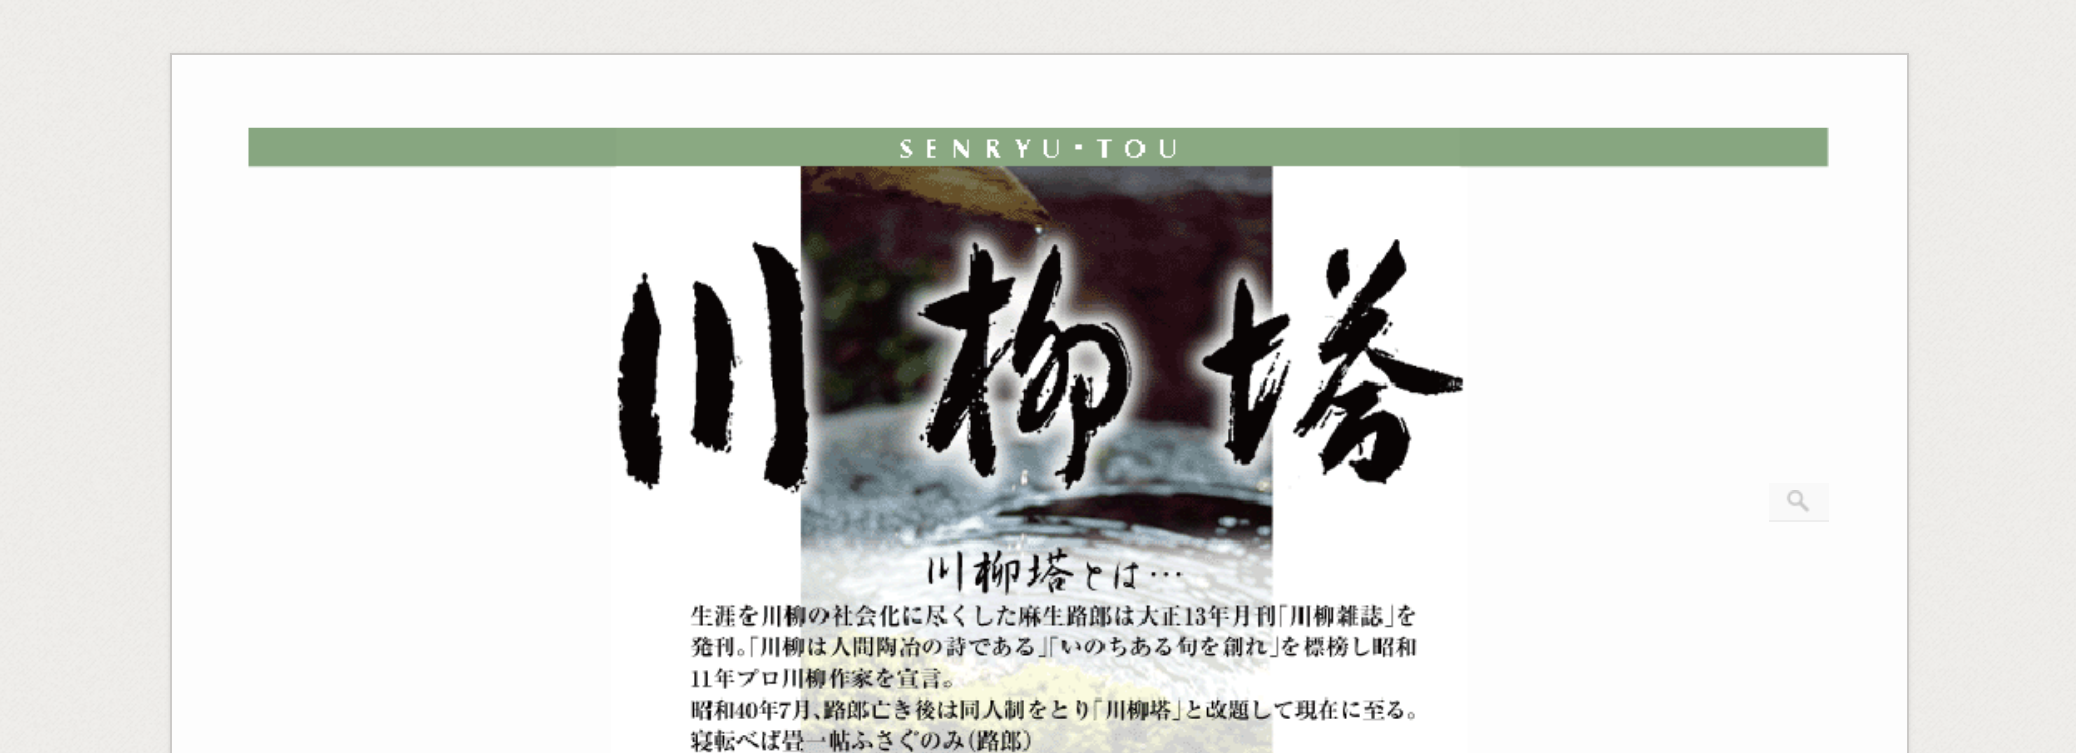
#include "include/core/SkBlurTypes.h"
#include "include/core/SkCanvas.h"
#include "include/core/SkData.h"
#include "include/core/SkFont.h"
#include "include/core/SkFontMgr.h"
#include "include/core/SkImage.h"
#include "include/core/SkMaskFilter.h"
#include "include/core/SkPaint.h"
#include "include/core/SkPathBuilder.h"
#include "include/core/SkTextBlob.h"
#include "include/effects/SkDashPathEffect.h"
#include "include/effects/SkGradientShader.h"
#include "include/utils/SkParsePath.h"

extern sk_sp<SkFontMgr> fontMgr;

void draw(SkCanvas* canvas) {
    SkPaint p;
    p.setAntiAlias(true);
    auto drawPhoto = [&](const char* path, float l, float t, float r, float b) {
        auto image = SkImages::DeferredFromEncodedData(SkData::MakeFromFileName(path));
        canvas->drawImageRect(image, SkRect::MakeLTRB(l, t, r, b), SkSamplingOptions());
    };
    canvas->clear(0xFFFFFFFF);
    drawPhoto("media/1.png", 0, 0, 2076, 753);
    p.setColor(0x1A000000);
    p.setMaskFilter(SkMaskFilter::MakeBlur(kNormal_SkBlurStyle, 2));
    canvas->drawRect(SkRect::MakeLTRB(170, 54, 1909, 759), p);
    p.setMaskFilter(nullptr);
    p.setColor(0xFFFDFDFD);
    canvas->drawRect(SkRect::MakeLTRB(171, 54, 1908, 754), p);
    p.setStyle(SkPaint::kStroke_Style);
    p.setStrokeWidth(2);
    p.setColor(0xFFCBC9C7);
    canvas->drawRect(SkRect::MakeLTRB(171, 54, 1908, 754), p);
    drawPhoto("media/2.png", 248, 127, 1829, 753);
    p.setStyle(SkPaint::kFill_Style);
    p.setColor(0xFFF9F9F9);
    canvas->drawRect(SkRect::MakeLTRB(1769, 483, 1829, 520), p);
    drawPhoto("media/3.png", 1786, 490, 1810, 513);
    p.setColor(0xFFEEEEEE);
    canvas->drawRect(SkRect::MakeLTRB(1769, 520, 1829, 522), p);
}
